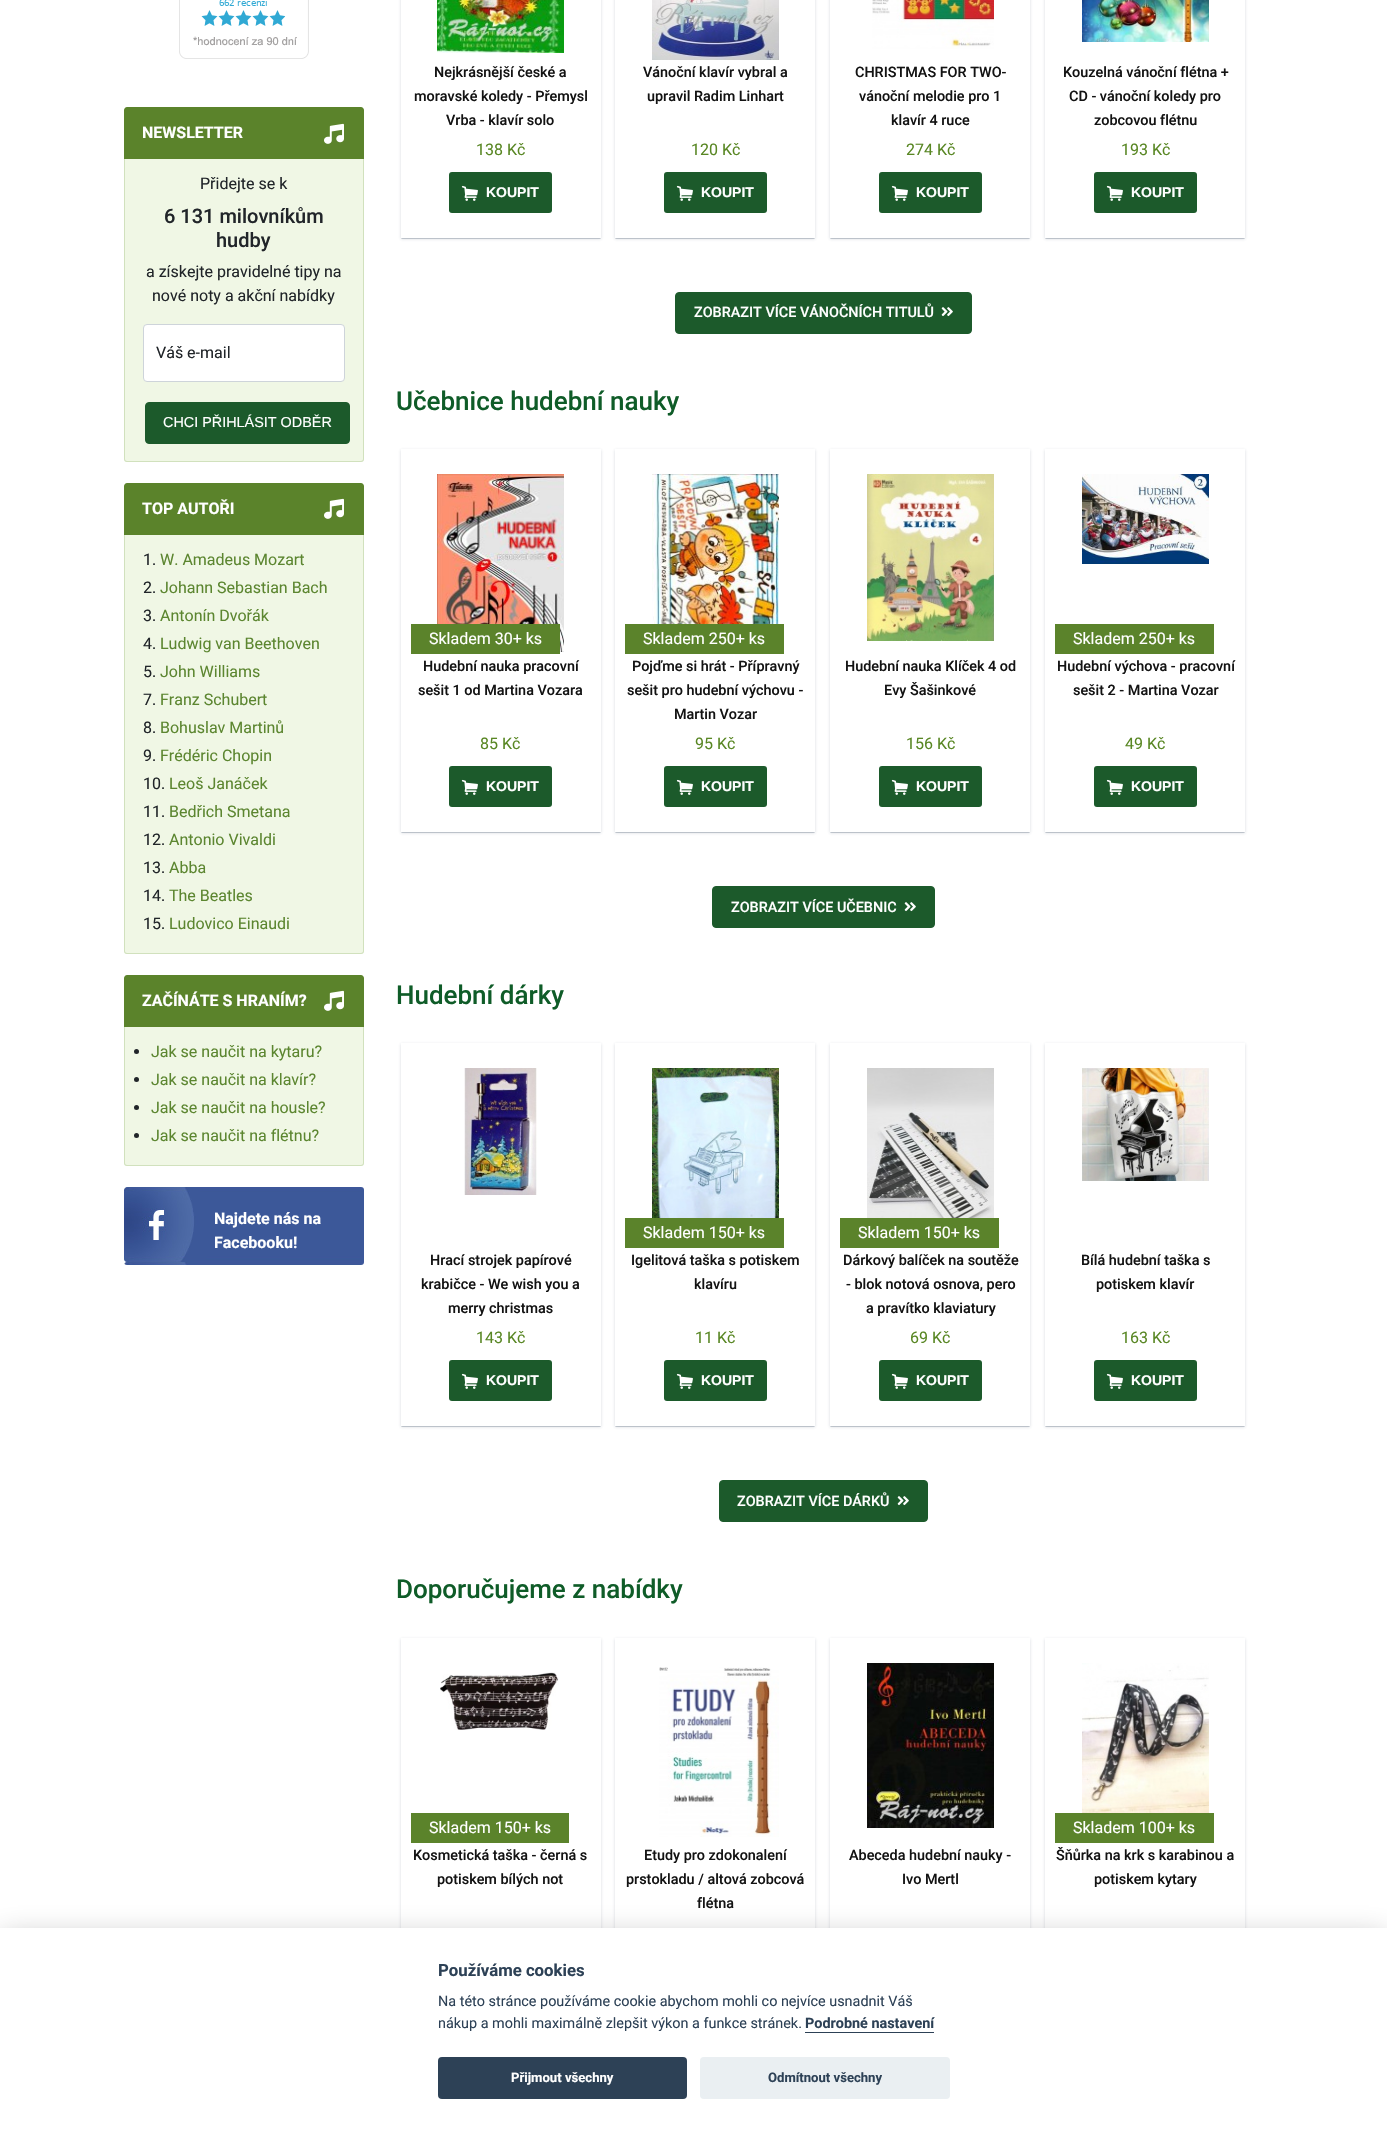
#include "include/core/SkBlurTypes.h"
#include "include/core/SkCanvas.h"
#include "include/core/SkData.h"
#include "include/core/SkFont.h"
#include "include/core/SkFontMgr.h"
#include "include/core/SkImage.h"
#include "include/core/SkMaskFilter.h"
#include "include/core/SkPaint.h"
#include "include/core/SkPathBuilder.h"
#include "include/core/SkTextBlob.h"
#include "include/effects/SkDashPathEffect.h"
#include "include/effects/SkGradientShader.h"
#include "include/utils/SkParsePath.h"

extern sk_sp<SkFontMgr> fontMgr;

void draw(SkCanvas* canvas) {
    SkPaint p;
    p.setAntiAlias(true);
    auto font = [&](const char* family, int weight, float size, bool italic = false) {
        SkFontStyle style(weight, SkFontStyle::kNormal_Width,
            italic ? SkFontStyle::kItalic_Slant : SkFontStyle::kUpright_Slant);
        SkFont result(fontMgr->matchFamilyStyle(family, style), size);
        result.setSubpixel(true);
        return result;
    };
    auto drawPhoto = [&](const char* path, float l, float t, float r, float b) {
        auto image = SkImages::DeferredFromEncodedData(SkData::MakeFromFileName(path));
        canvas->drawImageRect(image, SkRect::MakeLTRB(l, t, r, b), SkSamplingOptions());
    };
    canvas->clear(0xFFFFFFFF);
    drawPhoto("media/1.png", 179, 0, 309, 59);
    p.setColor(0xFF5B832B);
    canvas->drawPath(SkPathBuilder().moveTo(127, 107).lineTo(361, 107).cubicTo(362.5f, 107, 364, 108.5f, 364, 110).lineTo(364, 159).lineTo(124, 159).lineTo(124, 110).cubicTo(124, 108.5f, 125.5f, 107, 127, 107).close().detach(), p);
    drawPhoto("media/2.png", 324, 123, 344, 144);
    auto font1 = font("Roboto", 700, 16);
    p.setColor(0xFFFFFFFF);
    canvas->drawString("NEWSLETTER", 142, 138, font1, p);
    p.setColor(0xFFF0F7E5);
    canvas->drawPath(SkPathBuilder().moveTo(124, 159).lineTo(364, 159).lineTo(364, 459).cubicTo(364, 460.5f, 362.5f, 462, 361, 462).lineTo(127, 462).cubicTo(125.5f, 462, 124, 460.5f, 124, 459).close().detach(), p);
    p.setColor(0xFFD1E1BD);
    canvas->drawPath(SkPathBuilder(SkPathFillType::kEvenOdd).moveTo(124, 159).lineTo(364, 159).lineTo(364, 459).cubicTo(364, 461, 363, 462, 361, 462).lineTo(127, 462).cubicTo(125, 462, 124, 461, 124, 459).close().moveTo(125, 159).lineTo(363, 159).lineTo(363, 459).cubicTo(363, 460, 362, 461, 361, 461).lineTo(127, 461).cubicTo(126, 461, 125, 460, 125, 459).close().detach(), p);
    auto font2 = font("Roboto", 400, 16);
    p.setColor(0xFF212529);
    canvas->drawString("Přidejte se k", 200, 189, font2, p);
    auto font3 = font("Roboto", 500, 20);
    canvas->drawString("6 131 milovníkům", 164, 223, font3, p);
    canvas->drawString("hudby", 216, 247, font3, p);
    canvas->drawString("a získejte pravidelné tipy na", 146, 277, font2, p);
    canvas->drawString("nové noty a akční nabídky", 152, 301, font2, p);
    p.setColor(0xFFFFFFFF);
    canvas->drawRoundRect(SkRect::MakeLTRB(143.5f, 324.5f, 344.5f, 381.5f), 3.5f, 3.5f, p);
    p.setStyle(SkPaint::kStroke_Style);
    p.setStrokeWidth(1);
    p.setColor(0xFFCED4DA);
    canvas->drawRoundRect(SkRect::MakeLTRB(143.5f, 324.5f, 344.5f, 381.5f), 3.5f, 3.5f, p);
    p.setStyle(SkPaint::kFill_Style);
    p.setColor(0xFF212529);
    canvas->drawString("Váš e-mail", 156, 358, font2, p);
    p.setColor(0xFF1C5A2B);
    canvas->drawRoundRect(SkRect::MakeLTRB(145.5f, 402.5f, 349.5f, 443.5f), 3.5f, 3.5f, p);
    p.setStyle(SkPaint::kStroke_Style);
    canvas->drawRoundRect(SkRect::MakeLTRB(145.5f, 402.5f, 349.5f, 443.5f), 3.5f, 3.5f, p);
    auto font4 = font("Liberation Sans", 400, 14.4f);
    p.setStyle(SkPaint::kFill_Style);
    p.setColor(0xFFFFFFFF);
    canvas->drawString("CHCI PŘIHLÁSIT ODBĚR", 163, 427, font4, p);
    p.setColor(0xFF5B832B);
    canvas->drawPath(SkPathBuilder().moveTo(127, 483).lineTo(361, 483).cubicTo(362.5f, 483, 364, 484.5f, 364, 486).lineTo(364, 535).lineTo(124, 535).lineTo(124, 486).cubicTo(124, 484.5f, 125.5f, 483, 127, 483).close().detach(), p);
    drawPhoto("media/2.png", 324, 498, 344, 519);
    p.setColor(0xFFFFFFFF);
    canvas->drawString("TOP AUTOŘI", 142, 514, font1, p);
    p.setColor(0xFFF0F7E5);
    canvas->drawPath(SkPathBuilder().moveTo(124, 535).lineTo(364, 535).lineTo(364, 951).cubicTo(364, 952.5f, 362.5f, 954, 361, 954).lineTo(127, 954).cubicTo(125.5f, 954, 124, 952.5f, 124, 951).close().detach(), p);
    p.setColor(0xFFD1E1BD);
    canvas->drawPath(SkPathBuilder(SkPathFillType::kEvenOdd).moveTo(124, 535).lineTo(364, 535).lineTo(364, 951).cubicTo(364, 953, 363, 954, 361, 954).lineTo(127, 954).cubicTo(125, 954, 124, 953, 124, 951).close().moveTo(125, 535).lineTo(363, 535).lineTo(363, 951).cubicTo(363, 952, 362, 953, 361, 953).lineTo(127, 953).cubicTo(126, 953, 125, 952, 125, 951).close().detach(), p);
    p.setColor(0xFF212529);
    canvas->drawString("1.", 143, 565, font2, p);
    p.setColor(0xFF5C8630);
    canvas->drawString("W. Amadeus Mozart", 160, 565, font2, p);
    p.setColor(0xFF212529);
    canvas->drawString("2.", 143, 593, font2, p);
    p.setColor(0xFF5C8630);
    canvas->drawString("Johann Sebastian Bach", 160, 593, font2, p);
    p.setColor(0xFF212529);
    canvas->drawString("3.", 143, 621, font2, p);
    p.setColor(0xFF5C8630);
    canvas->drawString("Antonín Dvořák", 160, 621, font2, p);
    p.setColor(0xFF212529);
    canvas->drawString("4.", 143, 649, font2, p);
    p.setColor(0xFF5C8630);
    canvas->drawString("Ludwig van Beethoven", 160, 649, font2, p);
    p.setColor(0xFF212529);
    canvas->drawString("5.", 143, 677, font2, p);
    p.setColor(0xFF5C8630);
    canvas->drawString("John Williams", 160, 677, font2, p);
    p.setColor(0xFF212529);
    canvas->drawString("7.", 143, 705, font2, p);
    p.setColor(0xFF5C8630);
    canvas->drawString("Franz Schubert", 160, 705, font2, p);
    p.setColor(0xFF212529);
    canvas->drawString("8.", 143, 733, font2, p);
    p.setColor(0xFF5C8630);
    canvas->drawString("Bohuslav Martinů", 160, 733, font2, p);
    p.setColor(0xFF212529);
    canvas->drawString("9.", 143, 761, font2, p);
    p.setColor(0xFF5C8630);
    canvas->drawString("Frédéric Chopin", 160, 761, font2, p);
    p.setColor(0xFF212529);
    canvas->drawString("10.", 143, 789, font2, p);
    p.setColor(0xFF5C8630);
    canvas->drawString("Leoš Janáček", 169, 789, font2, p);
    p.setColor(0xFF212529);
    canvas->drawString("11.", 143, 817, font2, p);
    p.setColor(0xFF5C8630);
    canvas->drawString("Bedřich Smetana", 169, 817, font2, p);
    p.setColor(0xFF212529);
    canvas->drawString("12.", 143, 845, font2, p);
    p.setColor(0xFF5C8630);
    canvas->drawString("Antonio Vivaldi", 169, 845, font2, p);
    p.setColor(0xFF212529);
    canvas->drawString("13.", 143, 873, font2, p);
    p.setColor(0xFF5C8630);
    canvas->drawString("Abba", 169, 873, font2, p);
    p.setColor(0xFF212529);
    canvas->drawString("14.", 143, 901, font2, p);
    p.setColor(0xFF5C8630);
    canvas->drawString("The Beatles", 169, 901, font2, p);
    p.setColor(0xFF212529);
    canvas->drawString("15.", 143, 929, font2, p);
    p.setColor(0xFF5C8630);
    canvas->drawString("Ludovico Einaudi", 169, 929, font2, p);
    p.setColor(0xFF5B832B);
    canvas->drawPath(SkPathBuilder().moveTo(127, 975).lineTo(361, 975).cubicTo(362.5f, 975, 364, 976.5f, 364, 978).lineTo(364, 1027).lineTo(124, 1027).lineTo(124, 978).cubicTo(124, 976.5f, 125.5f, 975, 127, 975).close().detach(), p);
    drawPhoto("media/2.png", 324, 990, 344, 1011);
    p.setColor(0xFFFFFFFF);
    canvas->drawString("ZAČÍNÁTE S HRANÍM?", 142, 1006, font1, p);
    p.setColor(0xFFF0F7E5);
    canvas->drawPath(SkPathBuilder().moveTo(124, 1027).lineTo(364, 1027).lineTo(364, 1163).cubicTo(364, 1164.5f, 362.5f, 1166, 361, 1166).lineTo(127, 1166).cubicTo(125.5f, 1166, 124, 1164.5f, 124, 1163).close().detach(), p);
    p.setColor(0xFFD1E1BD);
    canvas->drawPath(SkPathBuilder(SkPathFillType::kEvenOdd).moveTo(124, 1027).lineTo(364, 1027).lineTo(364, 1163).cubicTo(364, 1165, 363, 1166, 361, 1166).lineTo(127, 1166).cubicTo(125, 1166, 124, 1165, 124, 1163).close().moveTo(125, 1027).lineTo(363, 1027).lineTo(363, 1163).cubicTo(363, 1164, 362, 1165, 361, 1165).lineTo(127, 1165).cubicTo(126, 1165, 125, 1164, 125, 1163).close().detach(), p);
    p.setColor(0xFF212529);
    canvas->drawCircle(136.5f, 1051.5f, 2.5f, p);
    p.setColor(0xFF5C8630);
    canvas->drawString("Jak se naučit na kytaru?", 151, 1057, font2, p);
    p.setColor(0xFF212529);
    canvas->drawCircle(136.5f, 1079.5f, 2.5f, p);
    p.setColor(0xFF5C8630);
    canvas->drawString("Jak se naučit na klavír?", 151, 1085, font2, p);
    p.setColor(0xFF212529);
    canvas->drawCircle(136.5f, 1107.5f, 2.5f, p);
    p.setColor(0xFF5C8630);
    canvas->drawString("Jak se naučit na housle?", 151, 1113, font2, p);
    p.setColor(0xFF212529);
    canvas->drawCircle(136.5f, 1135.5f, 2.5f, p);
    p.setColor(0xFF5C8630);
    canvas->drawString("Jak se naučit na flétnu?", 151, 1141, font2, p);
    drawPhoto("media/3.png", 124, 1187, 364, 1265);
    p.setColor(0xFFFFFFFF);
    canvas->drawString("Najdete nás na", 214, 1224, font1, p);
    canvas->drawString("Facebooku!", 214, 1248, font1, p);
    canvas->save();
    canvas->clipPath(SkPathBuilder(SkPathFillType::kEvenOdd).moveTo(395, 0).lineTo(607, 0).lineTo(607, 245).lineTo(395, 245).close().moveTo(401, -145).lineTo(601, -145).lineTo(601, 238).lineTo(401, 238).close().detach(), true);
    p.setColor(0x333C4B64);
    p.setMaskFilter(SkMaskFilter::MakeBlur(kNormal_SkBlurStyle, 1.5f));
    canvas->drawRect(SkRect::MakeLTRB(401, -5, 601, 239), p);
    p.setMaskFilter(nullptr);
    canvas->restore();
    canvas->save();
    canvas->clipRect(SkRect::MakeLTRB(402, 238, 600, 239));
    p.setColor(0x1F3C4B64);
    p.setMaskFilter(SkMaskFilter::MakeBlur(kNormal_SkBlurStyle, 0.5f));
    canvas->drawRect(SkRect::MakeLTRB(402, -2, 600, 239), p);
    p.setMaskFilter(nullptr);
    canvas->restore();
    canvas->save();
    canvas->clipRect(SkRect::MakeLTRB(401, 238, 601, 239));
    p.setColor(0x243C4B64);
    p.setMaskFilter(SkMaskFilter::MakeBlur(kNormal_SkBlurStyle, 0.5f));
    canvas->drawRect(SkRect::MakeLTRB(401, -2, 601, 239), p);
    p.setMaskFilter(nullptr);
    canvas->restore();
    drawPhoto("media/4.png", 437, 0, 564, 53);
    auto font5 = font("Roboto", 500, 14.4f);
    p.setColor(0xFF131313);
    {
        const struct { const char* s; float x, y; } items[] = {
            {"Nejkrásnější české a", 434, 77},
            {"moravské koledy - Přemysl", 414, 101},
            {"Vrba - klavír solo", 446, 125},
        };
        for (auto [s, x, y] : items) {
            canvas->drawString(s, x, y, font5, p);
        }
    }
    p.setColor(0xFF598724);
    canvas->drawString("138 Kč", 476, 155, font2, p);
    p.setColor(0xFF1C5A2B);
    canvas->drawRoundRect(SkRect::MakeLTRB(449, 172, 552, 213), 3, 3, p);
    drawPhoto("media/5.png", 461, 185, 478, 201);
    auto font6 = font("Liberation Sans", 700, 14);
    p.setColor(0xFFFFFFFF);
    canvas->drawString("KOUPIT", 486, 197, font6, p);
    canvas->save();
    canvas->clipPath(SkPathBuilder(SkPathFillType::kEvenOdd).moveTo(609, 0).lineTo(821, 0).lineTo(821, 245).lineTo(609, 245).close().moveTo(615, -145).lineTo(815, -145).lineTo(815, 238).lineTo(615, 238).close().detach(), true);
    p.setColor(0x333C4B64);
    p.setMaskFilter(SkMaskFilter::MakeBlur(kNormal_SkBlurStyle, 1.5f));
    canvas->drawRect(SkRect::MakeLTRB(615, -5, 815, 239), p);
    p.setMaskFilter(nullptr);
    canvas->restore();
    canvas->save();
    canvas->clipRect(SkRect::MakeLTRB(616, 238, 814, 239));
    p.setColor(0x1F3C4B64);
    p.setMaskFilter(SkMaskFilter::MakeBlur(kNormal_SkBlurStyle, 0.5f));
    canvas->drawRect(SkRect::MakeLTRB(616, -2, 814, 239), p);
    p.setMaskFilter(nullptr);
    canvas->restore();
    canvas->save();
    canvas->clipRect(SkRect::MakeLTRB(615, 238, 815, 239));
    p.setColor(0x243C4B64);
    p.setMaskFilter(SkMaskFilter::MakeBlur(kNormal_SkBlurStyle, 0.5f));
    canvas->drawRect(SkRect::MakeLTRB(615, -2, 815, 239), p);
    p.setMaskFilter(nullptr);
    canvas->restore();
    drawPhoto("media/6.png", 652, 0, 779, 60);
    p.setColor(0xFF131313);
    canvas->drawString("Vánoční klavír vybral a", 643, 77, font5, p);
    canvas->drawString("upravil Radim Linhart", 647, 101, font5, p);
    p.setColor(0xFF598724);
    canvas->drawString("120 Kč", 691, 155, font2, p);
    p.setColor(0xFF1C5A2B);
    canvas->drawRoundRect(SkRect::MakeLTRB(664, 172, 767, 213), 3, 3, p);
    drawPhoto("media/5.png", 676, 185, 693, 201);
    p.setColor(0xFFFFFFFF);
    canvas->drawString("KOUPIT", 701, 197, font6, p);
    canvas->save();
    canvas->clipPath(SkPathBuilder(SkPathFillType::kEvenOdd).moveTo(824, 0).lineTo(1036, 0).lineTo(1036, 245).lineTo(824, 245).close().moveTo(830, -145).lineTo(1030, -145).lineTo(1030, 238).lineTo(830, 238).close().detach(), true);
    p.setColor(0x333C4B64);
    p.setMaskFilter(SkMaskFilter::MakeBlur(kNormal_SkBlurStyle, 1.5f));
    canvas->drawRect(SkRect::MakeLTRB(830, -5, 1030, 239), p);
    p.setMaskFilter(nullptr);
    canvas->restore();
    canvas->save();
    canvas->clipRect(SkRect::MakeLTRB(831, 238, 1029, 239));
    p.setColor(0x1F3C4B64);
    p.setMaskFilter(SkMaskFilter::MakeBlur(kNormal_SkBlurStyle, 0.5f));
    canvas->drawRect(SkRect::MakeLTRB(831, -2, 1029, 239), p);
    p.setMaskFilter(nullptr);
    canvas->restore();
    canvas->save();
    canvas->clipRect(SkRect::MakeLTRB(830, 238, 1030, 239));
    p.setColor(0x243C4B64);
    p.setMaskFilter(SkMaskFilter::MakeBlur(kNormal_SkBlurStyle, 0.5f));
    canvas->drawRect(SkRect::MakeLTRB(830, -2, 1030, 239), p);
    p.setMaskFilter(nullptr);
    canvas->restore();
    drawPhoto("media/7.png", 872, 0, 994, 49);
    p.setColor(0xFF131313);
    {
        const struct { const char* s; float x, y; } items[] = {
            {"CHRISTMAS FOR TWO-", 855, 77},
            {"vánoční melodie pro 1", 859, 101},
            {"klavír 4 ruce", 891, 125},
        };
        for (auto [s, x, y] : items) {
            canvas->drawString(s, x, y, font5, p);
        }
    }
    p.setColor(0xFF598724);
    canvas->drawString("274 Kč", 906, 155, font2, p);
    p.setColor(0xFF1C5A2B);
    canvas->drawRoundRect(SkRect::MakeLTRB(879, 172, 982, 213), 3, 3, p);
    drawPhoto("media/5.png", 891, 185, 908, 201);
    p.setColor(0xFFFFFFFF);
    canvas->drawString("KOUPIT", 916, 197, font6, p);
    canvas->save();
    canvas->clipPath(SkPathBuilder(SkPathFillType::kEvenOdd).moveTo(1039, 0).lineTo(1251, 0).lineTo(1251, 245).lineTo(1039, 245).close().moveTo(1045, -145).lineTo(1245, -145).lineTo(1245, 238).lineTo(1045, 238).close().detach(), true);
    p.setColor(0x333C4B64);
    p.setMaskFilter(SkMaskFilter::MakeBlur(kNormal_SkBlurStyle, 1.5f));
    canvas->drawRect(SkRect::MakeLTRB(1045, -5, 1245, 239), p);
    p.setMaskFilter(nullptr);
    canvas->restore();
    canvas->save();
    canvas->clipRect(SkRect::MakeLTRB(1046, 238, 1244, 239));
    p.setColor(0x1F3C4B64);
    p.setMaskFilter(SkMaskFilter::MakeBlur(kNormal_SkBlurStyle, 0.5f));
    canvas->drawRect(SkRect::MakeLTRB(1046, -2, 1244, 239), p);
    p.setMaskFilter(nullptr);
    canvas->restore();
    canvas->save();
    canvas->clipRect(SkRect::MakeLTRB(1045, 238, 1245, 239));
    p.setColor(0x243C4B64);
    p.setMaskFilter(SkMaskFilter::MakeBlur(kNormal_SkBlurStyle, 0.5f));
    canvas->drawRect(SkRect::MakeLTRB(1045, -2, 1245, 239), p);
    p.setMaskFilter(nullptr);
    canvas->restore();
    drawPhoto("media/8.png", 1082, 0, 1209, 42);
    p.setColor(0xFF131313);
    {
        const struct { const char* s; float x, y; } items[] = {
            {"Kouzelná vánoční flétna +", 1063, 77},
            {"CD - vánoční koledy pro", 1069, 101},
            {"zobcovou flétnu", 1094, 125},
        };
        for (auto [s, x, y] : items) {
            canvas->drawString(s, x, y, font5, p);
        }
    }
    p.setColor(0xFF598724);
    canvas->drawString("193 Kč", 1121, 155, font2, p);
    p.setColor(0xFF1C5A2B);
    canvas->drawRoundRect(SkRect::MakeLTRB(1094, 172, 1197, 213), 3, 3, p);
    drawPhoto("media/5.png", 1106, 185, 1123, 201);
    p.setColor(0xFFFFFFFF);
    canvas->drawString("KOUPIT", 1131, 197, font6, p);
    p.setColor(0xFF1C5A2B);
    canvas->drawRoundRect(SkRect::MakeLTRB(675.5f, 292.5f, 971.5f, 333.5f), 3.5f, 3.5f, p);
    p.setStyle(SkPaint::kStroke_Style);
    canvas->drawRoundRect(SkRect::MakeLTRB(675.5f, 292.5f, 971.5f, 333.5f), 3.5f, 3.5f, p);
    p.setStyle(SkPaint::kFill_Style);
    p.setColor(0xFFFFFFFF);
    canvas->drawString("ZOBRAZIT VÍCE VÁNOČNÍCH TITULŮ", 694, 317, font5, p);
    drawPhoto("media/9.png", 941, 307, 953, 317);
    auto font7 = font("Roboto", 500, 26);
    p.setColor(0xFF0F5C28);
    canvas->drawString("Učebnice hudební nauky", 396, 410, font7, p);
    canvas->save();
    canvas->clipPath(SkPathBuilder(SkPathFillType::kEvenOdd).moveTo(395, 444).lineTo(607, 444).lineTo(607, 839).lineTo(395, 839).close().moveTo(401, 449).lineTo(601, 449).lineTo(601, 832).lineTo(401, 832).close().detach(), true);
    p.setColor(0x333C4B64);
    p.setMaskFilter(SkMaskFilter::MakeBlur(kNormal_SkBlurStyle, 1.5f));
    canvas->drawRect(SkRect::MakeLTRB(401, 450, 601, 833), p);
    p.setMaskFilter(nullptr);
    canvas->restore();
    canvas->save();
    canvas->clipRect(SkRect::MakeLTRB(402, 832, 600, 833));
    p.setColor(0x1F3C4B64);
    p.setMaskFilter(SkMaskFilter::MakeBlur(kNormal_SkBlurStyle, 0.5f));
    canvas->drawRect(SkRect::MakeLTRB(402, 452, 600, 833), p);
    p.setMaskFilter(nullptr);
    canvas->restore();
    canvas->save();
    canvas->clipRect(SkRect::MakeLTRB(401, 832, 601, 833));
    p.setColor(0x243C4B64);
    p.setMaskFilter(SkMaskFilter::MakeBlur(kNormal_SkBlurStyle, 0.5f));
    canvas->drawRect(SkRect::MakeLTRB(401, 450, 601, 833), p);
    p.setMaskFilter(nullptr);
    canvas->restore();
    drawPhoto("media/10.png", 437, 474, 564, 652);
    p.setColor(0xFF5B832B);
    canvas->drawRect(SkRect::MakeLTRB(411, 624, 560, 654), p);
    p.setColor(0xFFFFFFFF);
    canvas->drawString("Skladem 30+ ks", 429, 644, font2, p);
    p.setColor(0xFF131313);
    canvas->drawString("Hudební nauka pracovní", 423, 671, font5, p);
    canvas->drawString("sešit 1 od Martina Vozara", 418, 695, font5, p);
    p.setColor(0xFF598724);
    canvas->drawString("85 Kč", 480, 749, font2, p);
    p.setColor(0xFF1C5A2B);
    canvas->drawRoundRect(SkRect::MakeLTRB(449, 766, 552, 807), 3, 3, p);
    drawPhoto("media/5.png", 461, 779, 478, 795);
    p.setColor(0xFFFFFFFF);
    canvas->drawString("KOUPIT", 486, 791, font6, p);
    canvas->save();
    canvas->clipPath(SkPathBuilder(SkPathFillType::kEvenOdd).moveTo(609, 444).lineTo(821, 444).lineTo(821, 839).lineTo(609, 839).close().moveTo(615, 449).lineTo(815, 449).lineTo(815, 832).lineTo(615, 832).close().detach(), true);
    p.setColor(0x333C4B64);
    p.setMaskFilter(SkMaskFilter::MakeBlur(kNormal_SkBlurStyle, 1.5f));
    canvas->drawRect(SkRect::MakeLTRB(615, 450, 815, 833), p);
    p.setMaskFilter(nullptr);
    canvas->restore();
    canvas->save();
    canvas->clipRect(SkRect::MakeLTRB(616, 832, 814, 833));
    p.setColor(0x1F3C4B64);
    p.setMaskFilter(SkMaskFilter::MakeBlur(kNormal_SkBlurStyle, 0.5f));
    canvas->drawRect(SkRect::MakeLTRB(616, 452, 814, 833), p);
    p.setMaskFilter(nullptr);
    canvas->restore();
    canvas->save();
    canvas->clipRect(SkRect::MakeLTRB(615, 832, 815, 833));
    p.setColor(0x243C4B64);
    p.setMaskFilter(SkMaskFilter::MakeBlur(kNormal_SkBlurStyle, 0.5f));
    canvas->drawRect(SkRect::MakeLTRB(615, 450, 815, 833), p);
    p.setMaskFilter(nullptr);
    canvas->restore();
    drawPhoto("media/11.png", 652, 474, 779, 624);
    p.setColor(0xFF5B832B);
    canvas->drawRect(SkRect::MakeLTRB(625, 624, 784, 654), p);
    p.setColor(0xFFFFFFFF);
    canvas->drawString("Skladem 250+ ks", 643, 644, font2, p);
    p.setColor(0xFF131313);
    {
        const struct { const char* s; float x, y; } items[] = {
            {"Pojďme si hrát - Přípravný", 632, 671},
            {"sešit pro hudební výchovu -", 627, 695},
            {"Martin Vozar", 674, 719},
        };
        for (auto [s, x, y] : items) {
            canvas->drawString(s, x, y, font5, p);
        }
    }
    p.setColor(0xFF598724);
    canvas->drawString("95 Kč", 695, 749, font2, p);
    p.setColor(0xFF1C5A2B);
    canvas->drawRoundRect(SkRect::MakeLTRB(664, 766, 767, 807), 3, 3, p);
    drawPhoto("media/5.png", 676, 779, 693, 795);
    p.setColor(0xFFFFFFFF);
    canvas->drawString("KOUPIT", 701, 791, font6, p);
    canvas->save();
    canvas->clipPath(SkPathBuilder(SkPathFillType::kEvenOdd).moveTo(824, 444).lineTo(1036, 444).lineTo(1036, 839).lineTo(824, 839).close().moveTo(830, 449).lineTo(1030, 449).lineTo(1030, 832).lineTo(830, 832).close().detach(), true);
    p.setColor(0x333C4B64);
    p.setMaskFilter(SkMaskFilter::MakeBlur(kNormal_SkBlurStyle, 1.5f));
    canvas->drawRect(SkRect::MakeLTRB(830, 450, 1030, 833), p);
    p.setMaskFilter(nullptr);
    canvas->restore();
    canvas->save();
    canvas->clipRect(SkRect::MakeLTRB(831, 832, 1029, 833));
    p.setColor(0x1F3C4B64);
    p.setMaskFilter(SkMaskFilter::MakeBlur(kNormal_SkBlurStyle, 0.5f));
    canvas->drawRect(SkRect::MakeLTRB(831, 452, 1029, 833), p);
    p.setMaskFilter(nullptr);
    canvas->restore();
    canvas->save();
    canvas->clipRect(SkRect::MakeLTRB(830, 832, 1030, 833));
    p.setColor(0x243C4B64);
    p.setMaskFilter(SkMaskFilter::MakeBlur(kNormal_SkBlurStyle, 0.5f));
    canvas->drawRect(SkRect::MakeLTRB(830, 450, 1030, 833), p);
    p.setMaskFilter(nullptr);
    canvas->restore();
    drawPhoto("media/12.png", 867, 474, 994, 641);
    p.setColor(0xFF131313);
    canvas->drawString("Hudební nauka Klíček 4 od", 845, 671, font5, p);
    canvas->drawString("Evy Šašinkové", 884, 695, font5, p);
    p.setColor(0xFF598724);
    canvas->drawString("156 Kč", 906, 749, font2, p);
    p.setColor(0xFF1C5A2B);
    canvas->drawRoundRect(SkRect::MakeLTRB(879, 766, 982, 807), 3, 3, p);
    drawPhoto("media/5.png", 891, 779, 908, 795);
    p.setColor(0xFFFFFFFF);
    canvas->drawString("KOUPIT", 916, 791, font6, p);
    canvas->save();
    canvas->clipPath(SkPathBuilder(SkPathFillType::kEvenOdd).moveTo(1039, 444).lineTo(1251, 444).lineTo(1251, 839).lineTo(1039, 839).close().moveTo(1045, 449).lineTo(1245, 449).lineTo(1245, 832).lineTo(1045, 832).close().detach(), true);
    p.setColor(0x333C4B64);
    p.setMaskFilter(SkMaskFilter::MakeBlur(kNormal_SkBlurStyle, 1.5f));
    canvas->drawRect(SkRect::MakeLTRB(1045, 450, 1245, 833), p);
    p.setMaskFilter(nullptr);
    canvas->restore();
    canvas->save();
    canvas->clipRect(SkRect::MakeLTRB(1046, 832, 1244, 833));
    p.setColor(0x1F3C4B64);
    p.setMaskFilter(SkMaskFilter::MakeBlur(kNormal_SkBlurStyle, 0.5f));
    canvas->drawRect(SkRect::MakeLTRB(1046, 452, 1244, 833), p);
    p.setMaskFilter(nullptr);
    canvas->restore();
    canvas->save();
    canvas->clipRect(SkRect::MakeLTRB(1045, 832, 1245, 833));
    p.setColor(0x243C4B64);
    p.setMaskFilter(SkMaskFilter::MakeBlur(kNormal_SkBlurStyle, 0.5f));
    canvas->drawRect(SkRect::MakeLTRB(1045, 450, 1245, 833), p);
    p.setMaskFilter(nullptr);
    canvas->restore();
    drawPhoto("media/13.png", 1082, 474, 1209, 564);
    p.setColor(0xFF5B832B);
    canvas->drawRect(SkRect::MakeLTRB(1055, 624, 1214, 654), p);
    p.setColor(0xFFFFFFFF);
    canvas->drawString("Skladem 250+ ks", 1073, 644, font2, p);
    p.setColor(0xFF131313);
    canvas->drawString("Hudební výchova - pracovní", 1057, 671, font5, p);
    canvas->drawString("sešit 2 - Martina Vozar", 1073, 695, font5, p);
    p.setColor(0xFF598724);
    canvas->drawString("49 Kč", 1125, 749, font2, p);
    p.setColor(0xFF1C5A2B);
    canvas->drawRoundRect(SkRect::MakeLTRB(1094, 766, 1197, 807), 3, 3, p);
    drawPhoto("media/5.png", 1106, 779, 1123, 795);
    p.setColor(0xFFFFFFFF);
    canvas->drawString("KOUPIT", 1131, 791, font6, p);
    p.setColor(0xFF1C5A2B);
    canvas->drawRoundRect(SkRect::MakeLTRB(712.5f, 886.5f, 934.5f, 927.5f), 3.5f, 3.5f, p);
    p.setStyle(SkPaint::kStroke_Style);
    canvas->drawRoundRect(SkRect::MakeLTRB(712.5f, 886.5f, 934.5f, 927.5f), 3.5f, 3.5f, p);
    p.setStyle(SkPaint::kFill_Style);
    p.setColor(0xFFFFFFFF);
    canvas->drawString("ZOBRAZIT VÍCE UČEBNIC", 731, 912, font5, p);
    drawPhoto("media/9.png", 904, 902, 916, 912);
    p.setColor(0xFF0F5C28);
    canvas->drawString("Hudební dárky", 396, 1004, font7, p);
    canvas->save();
    canvas->clipPath(SkPathBuilder(SkPathFillType::kEvenOdd).moveTo(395, 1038).lineTo(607, 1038).lineTo(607, 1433).lineTo(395, 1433).close().moveTo(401, 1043).lineTo(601, 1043).lineTo(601, 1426).lineTo(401, 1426).close().detach(), true);
    p.setColor(0x333C4B64);
    p.setMaskFilter(SkMaskFilter::MakeBlur(kNormal_SkBlurStyle, 1.5f));
    canvas->drawRect(SkRect::MakeLTRB(401, 1044, 601, 1427), p);
    p.setMaskFilter(nullptr);
    canvas->restore();
    canvas->save();
    canvas->clipRect(SkRect::MakeLTRB(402, 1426, 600, 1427));
    p.setColor(0x1F3C4B64);
    p.setMaskFilter(SkMaskFilter::MakeBlur(kNormal_SkBlurStyle, 0.5f));
    canvas->drawRect(SkRect::MakeLTRB(402, 1046, 600, 1427), p);
    p.setMaskFilter(nullptr);
    canvas->restore();
    canvas->save();
    canvas->clipRect(SkRect::MakeLTRB(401, 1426, 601, 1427));
    p.setColor(0x243C4B64);
    p.setMaskFilter(SkMaskFilter::MakeBlur(kNormal_SkBlurStyle, 0.5f));
    canvas->drawRect(SkRect::MakeLTRB(401, 1044, 601, 1427), p);
    p.setMaskFilter(nullptr);
    canvas->restore();
    drawPhoto("media/14.png", 464, 1068, 537, 1195);
    p.setColor(0xFF131313);
    {
        const struct { const char* s; float x, y; } items[] = {
            {"Hrací strojek papírové", 430, 1265},
            {"krabičce - We wish you a", 421, 1289},
            {"merry christmas", 448, 1313},
        };
        for (auto [s, x, y] : items) {
            canvas->drawString(s, x, y, font5, p);
        }
    }
    p.setColor(0xFF598724);
    canvas->drawString("143 Kč", 476, 1343, font2, p);
    p.setColor(0xFF1C5A2B);
    canvas->drawRoundRect(SkRect::MakeLTRB(449, 1360, 552, 1401), 3, 3, p);
    drawPhoto("media/5.png", 461, 1373, 478, 1389);
    p.setColor(0xFFFFFFFF);
    canvas->drawString("KOUPIT", 486, 1385, font6, p);
    canvas->save();
    canvas->clipPath(SkPathBuilder(SkPathFillType::kEvenOdd).moveTo(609, 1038).lineTo(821, 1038).lineTo(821, 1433).lineTo(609, 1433).close().moveTo(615, 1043).lineTo(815, 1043).lineTo(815, 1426).lineTo(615, 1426).close().detach(), true);
    p.setColor(0x333C4B64);
    p.setMaskFilter(SkMaskFilter::MakeBlur(kNormal_SkBlurStyle, 1.5f));
    canvas->drawRect(SkRect::MakeLTRB(615, 1044, 815, 1427), p);
    p.setMaskFilter(nullptr);
    canvas->restore();
    canvas->save();
    canvas->clipRect(SkRect::MakeLTRB(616, 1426, 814, 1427));
    p.setColor(0x1F3C4B64);
    p.setMaskFilter(SkMaskFilter::MakeBlur(kNormal_SkBlurStyle, 0.5f));
    canvas->drawRect(SkRect::MakeLTRB(616, 1046, 814, 1427), p);
    p.setMaskFilter(nullptr);
    canvas->restore();
    canvas->save();
    canvas->clipRect(SkRect::MakeLTRB(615, 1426, 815, 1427));
    p.setColor(0x243C4B64);
    p.setMaskFilter(SkMaskFilter::MakeBlur(kNormal_SkBlurStyle, 0.5f));
    canvas->drawRect(SkRect::MakeLTRB(615, 1044, 815, 1427), p);
    p.setMaskFilter(nullptr);
    canvas->restore();
    drawPhoto("media/15.png", 652, 1068, 779, 1218);
    p.setColor(0xFF5B832B);
    canvas->drawRect(SkRect::MakeLTRB(625, 1218, 784, 1248), p);
    p.setColor(0xFFFFFFFF);
    canvas->drawString("Skladem 150+ ks", 643, 1238, font2, p);
    p.setColor(0xFF131313);
    canvas->drawString("Igelitová taška s potiskem", 631, 1265, font5, p);
    canvas->drawString("klavíru", 694, 1289, font5, p);
    p.setColor(0xFF598724);
    canvas->drawString("11 Kč", 695, 1343, font2, p);
    p.setColor(0xFF1C5A2B);
    canvas->drawRoundRect(SkRect::MakeLTRB(664, 1360, 767, 1401), 3, 3, p);
    drawPhoto("media/5.png", 676, 1373, 693, 1389);
    p.setColor(0xFFFFFFFF);
    canvas->drawString("KOUPIT", 701, 1385, font6, p);
    canvas->save();
    canvas->clipPath(SkPathBuilder(SkPathFillType::kEvenOdd).moveTo(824, 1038).lineTo(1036, 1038).lineTo(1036, 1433).lineTo(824, 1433).close().moveTo(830, 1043).lineTo(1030, 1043).lineTo(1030, 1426).lineTo(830, 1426).close().detach(), true);
    p.setColor(0x333C4B64);
    p.setMaskFilter(SkMaskFilter::MakeBlur(kNormal_SkBlurStyle, 1.5f));
    canvas->drawRect(SkRect::MakeLTRB(830, 1044, 1030, 1427), p);
    p.setMaskFilter(nullptr);
    canvas->restore();
    canvas->save();
    canvas->clipRect(SkRect::MakeLTRB(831, 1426, 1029, 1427));
    p.setColor(0x1F3C4B64);
    p.setMaskFilter(SkMaskFilter::MakeBlur(kNormal_SkBlurStyle, 0.5f));
    canvas->drawRect(SkRect::MakeLTRB(831, 1046, 1029, 1427), p);
    p.setMaskFilter(nullptr);
    canvas->restore();
    canvas->save();
    canvas->clipRect(SkRect::MakeLTRB(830, 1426, 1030, 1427));
    p.setColor(0x243C4B64);
    p.setMaskFilter(SkMaskFilter::MakeBlur(kNormal_SkBlurStyle, 0.5f));
    canvas->drawRect(SkRect::MakeLTRB(830, 1044, 1030, 1427), p);
    p.setMaskFilter(nullptr);
    canvas->restore();
    drawPhoto("media/16.png", 867, 1068, 994, 1218);
    p.setColor(0xFF5B832B);
    canvas->drawRect(SkRect::MakeLTRB(840, 1218, 999, 1248), p);
    p.setColor(0xFFFFFFFF);
    canvas->drawString("Skladem 150+ ks", 858, 1238, font2, p);
    p.setColor(0xFF131313);
    {
        const struct { const char* s; float x, y; } items[] = {
            {"Dárkový balíček na soutěže", 843, 1265},
            {"- blok notová osnova, pero", 846, 1289},
            {"a pravítko klaviatury", 866, 1313},
        };
        for (auto [s, x, y] : items) {
            canvas->drawString(s, x, y, font5, p);
        }
    }
    p.setColor(0xFF598724);
    canvas->drawString("69 Kč", 910, 1343, font2, p);
    p.setColor(0xFF1C5A2B);
    canvas->drawRoundRect(SkRect::MakeLTRB(879, 1360, 982, 1401), 3, 3, p);
    drawPhoto("media/5.png", 891, 1373, 908, 1389);
    p.setColor(0xFFFFFFFF);
    canvas->drawString("KOUPIT", 916, 1385, font6, p);
    canvas->save();
    canvas->clipPath(SkPathBuilder(SkPathFillType::kEvenOdd).moveTo(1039, 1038).lineTo(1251, 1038).lineTo(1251, 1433).lineTo(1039, 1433).close().moveTo(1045, 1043).lineTo(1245, 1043).lineTo(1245, 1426).lineTo(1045, 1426).close().detach(), true);
    p.setColor(0x333C4B64);
    p.setMaskFilter(SkMaskFilter::MakeBlur(kNormal_SkBlurStyle, 1.5f));
    canvas->drawRect(SkRect::MakeLTRB(1045, 1044, 1245, 1427), p);
    p.setMaskFilter(nullptr);
    canvas->restore();
    canvas->save();
    canvas->clipRect(SkRect::MakeLTRB(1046, 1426, 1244, 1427));
    p.setColor(0x1F3C4B64);
    p.setMaskFilter(SkMaskFilter::MakeBlur(kNormal_SkBlurStyle, 0.5f));
    canvas->drawRect(SkRect::MakeLTRB(1046, 1046, 1244, 1427), p);
    p.setMaskFilter(nullptr);
    canvas->restore();
    canvas->save();
    canvas->clipRect(SkRect::MakeLTRB(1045, 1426, 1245, 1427));
    p.setColor(0x243C4B64);
    p.setMaskFilter(SkMaskFilter::MakeBlur(kNormal_SkBlurStyle, 0.5f));
    canvas->drawRect(SkRect::MakeLTRB(1045, 1044, 1245, 1427), p);
    p.setMaskFilter(nullptr);
    canvas->restore();
    drawPhoto("media/17.png", 1082, 1068, 1209, 1181);
    p.setColor(0xFF131313);
    canvas->drawString("Bílá hudební taška s", 1081, 1265, font5, p);
    canvas->drawString("potiskem klavír", 1096, 1289, font5, p);
    p.setColor(0xFF598724);
    canvas->drawString("163 Kč", 1121, 1343, font2, p);
    p.setColor(0xFF1C5A2B);
    canvas->drawRoundRect(SkRect::MakeLTRB(1094, 1360, 1197, 1401), 3, 3, p);
    drawPhoto("media/5.png", 1106, 1373, 1123, 1389);
    p.setColor(0xFFFFFFFF);
    canvas->drawString("KOUPIT", 1131, 1385, font6, p);
    p.setColor(0xFF1C5A2B);
    canvas->drawRoundRect(SkRect::MakeLTRB(719.5f, 1480.5f, 927.5f, 1521.5f), 3.5f, 3.5f, p);
    p.setStyle(SkPaint::kStroke_Style);
    canvas->drawRoundRect(SkRect::MakeLTRB(719.5f, 1480.5f, 927.5f, 1521.5f), 3.5f, 3.5f, p);
    p.setStyle(SkPaint::kFill_Style);
    p.setColor(0xFFFFFFFF);
    canvas->drawString("ZOBRAZIT VÍCE DÁRKŮ", 737, 1506, font5, p);
    drawPhoto("media/9.png", 897, 1496, 909, 1506);
    p.setColor(0xFF0F5C28);
    canvas->drawString("Doporučujeme z nabídky", 396, 1598, font7, p);
    canvas->save();
    canvas->clipPath(SkPathBuilder(SkPathFillType::kEvenOdd).moveTo(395, 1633).lineTo(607, 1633).lineTo(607, 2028).lineTo(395, 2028).close().moveTo(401, 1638).lineTo(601, 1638).lineTo(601, 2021).lineTo(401, 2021).close().detach(), true);
    p.setColor(0x333C4B64);
    p.setMaskFilter(SkMaskFilter::MakeBlur(kNormal_SkBlurStyle, 1.5f));
    canvas->drawRect(SkRect::MakeLTRB(401, 1639, 601, 2022), p);
    p.setMaskFilter(nullptr);
    canvas->restore();
    drawPhoto("media/18.png", 440, 1672, 559, 1730);
    p.setColor(0xFF5B832B);
    canvas->drawRect(SkRect::MakeLTRB(411, 1813, 569, 1843), p);
    p.setColor(0xFFFFFFFF);
    canvas->drawString("Skladem 150+ ks", 429, 1833, font2, p);
    p.setColor(0xFF131313);
    canvas->drawString("Kosmetická taška - černá s", 413, 1860, font5, p);
    canvas->drawString("potiskem bílých not", 437, 1884, font5, p);
    canvas->save();
    canvas->clipPath(SkPathBuilder(SkPathFillType::kEvenOdd).moveTo(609, 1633).lineTo(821, 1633).lineTo(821, 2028).lineTo(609, 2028).close().moveTo(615, 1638).lineTo(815, 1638).lineTo(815, 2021).lineTo(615, 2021).close().detach(), true);
    p.setColor(0x333C4B64);
    p.setMaskFilter(SkMaskFilter::MakeBlur(kNormal_SkBlurStyle, 1.5f));
    canvas->drawRect(SkRect::MakeLTRB(615, 1639, 815, 2022), p);
    p.setMaskFilter(nullptr);
    canvas->restore();
    drawPhoto("media/19.png", 659, 1667, 779, 1837);
    p.setColor(0xFF131313);
    {
        const struct { const char* s; float x, y; } items[] = {
            {"Etudy pro zdokonalení", 644, 1860},
            {"prstokladu / altová zobcová", 626, 1884},
            {"flétna", 697, 1908},
        };
        for (auto [s, x, y] : items) {
            canvas->drawString(s, x, y, font5, p);
        }
    }
    canvas->save();
    canvas->clipPath(SkPathBuilder(SkPathFillType::kEvenOdd).moveTo(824, 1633).lineTo(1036, 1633).lineTo(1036, 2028).lineTo(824, 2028).close().moveTo(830, 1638).lineTo(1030, 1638).lineTo(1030, 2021).lineTo(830, 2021).close().detach(), true);
    p.setColor(0x333C4B64);
    p.setMaskFilter(SkMaskFilter::MakeBlur(kNormal_SkBlurStyle, 1.5f));
    canvas->drawRect(SkRect::MakeLTRB(830, 1639, 1030, 2022), p);
    p.setMaskFilter(nullptr);
    canvas->restore();
    drawPhoto("media/20.png", 867, 1663, 994, 1828);
    p.setColor(0xFF131313);
    canvas->drawString("Abeceda hudební nauky -", 849, 1860, font5, p);
    canvas->drawString("Ivo Mertl", 902, 1884, font5, p);
    canvas->save();
    canvas->clipPath(SkPathBuilder(SkPathFillType::kEvenOdd).moveTo(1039, 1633).lineTo(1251, 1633).lineTo(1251, 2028).lineTo(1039, 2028).close().moveTo(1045, 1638).lineTo(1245, 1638).lineTo(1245, 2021).lineTo(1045, 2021).close().detach(), true);
    p.setColor(0x333C4B64);
    p.setMaskFilter(SkMaskFilter::MakeBlur(kNormal_SkBlurStyle, 1.5f));
    canvas->drawRect(SkRect::MakeLTRB(1045, 1639, 1245, 2022), p);
    p.setMaskFilter(nullptr);
    canvas->restore();
    drawPhoto("media/21.png", 1082, 1663, 1209, 1813);
    p.setColor(0xFF5B832B);
    canvas->drawRect(SkRect::MakeLTRB(1055, 1813, 1214, 1843), p);
    p.setColor(0xFFFFFFFF);
    canvas->drawString("Skladem 100+ ks", 1073, 1833, font2, p);
    p.setColor(0xFF131313);
    canvas->drawString("Šňůrka na krk s karabinou a", 1056, 1860, font5, p);
    canvas->drawString("potiskem kytary", 1094, 1884, font5, p);
    p.setColor(0x47020203);
    p.setMaskFilter(SkMaskFilter::MakeBlur(kNormal_SkBlurStyle, 15));
    canvas->drawRect(SkRect::MakeLTRB(0, 1938, 1387, 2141), p);
    p.setMaskFilter(nullptr);
    p.setColor(0xFFFFFFFF);
    canvas->drawRect(SkRect::MakeLTRB(0, 1928, 1387, 2131), p);
    auto font8 = font("Roboto", 700, 16.75f);
    p.setColor(0xFF2D4156);
    canvas->drawString("Používáme cookies", 438, 1976, font8, p);
    auto font9 = font("Roboto", 400, 14.4f);
    canvas->drawString("Na této stránce používáme cookie abychom mohli co nejvíce usnadnit Váš", 438, 2006, font9, p);
    canvas->drawString("nákup a mohli maximálně zlepšit výkon a funkce stránek.", 438, 2028, font9, p);
    auto font10 = font("Roboto", 700, 14.4f);
    canvas->drawString("Podrobné nastavení", 805, 2028, font10, p);
    canvas->drawRect(SkRect::MakeLTRB(805, 2032, 934, 2033), p);
    canvas->drawRoundRect(SkRect::MakeLTRB(438, 2057, 687, 2099), 4, 4, p);
    auto font11 = font("Roboto", 700, 13.1f);
    p.setColor(0xFFFFFFFF);
    canvas->drawString("Přijmout všechny", 511, 2082, font11, p);
    p.setColor(0xFFEAEFF2);
    canvas->drawRoundRect(SkRect::MakeLTRB(700, 2057, 950, 2099), 4, 4, p);
    p.setColor(0xFF2D4156);
    canvas->drawString("Odmítnout všechny", 768, 2082, font11, p);
}
